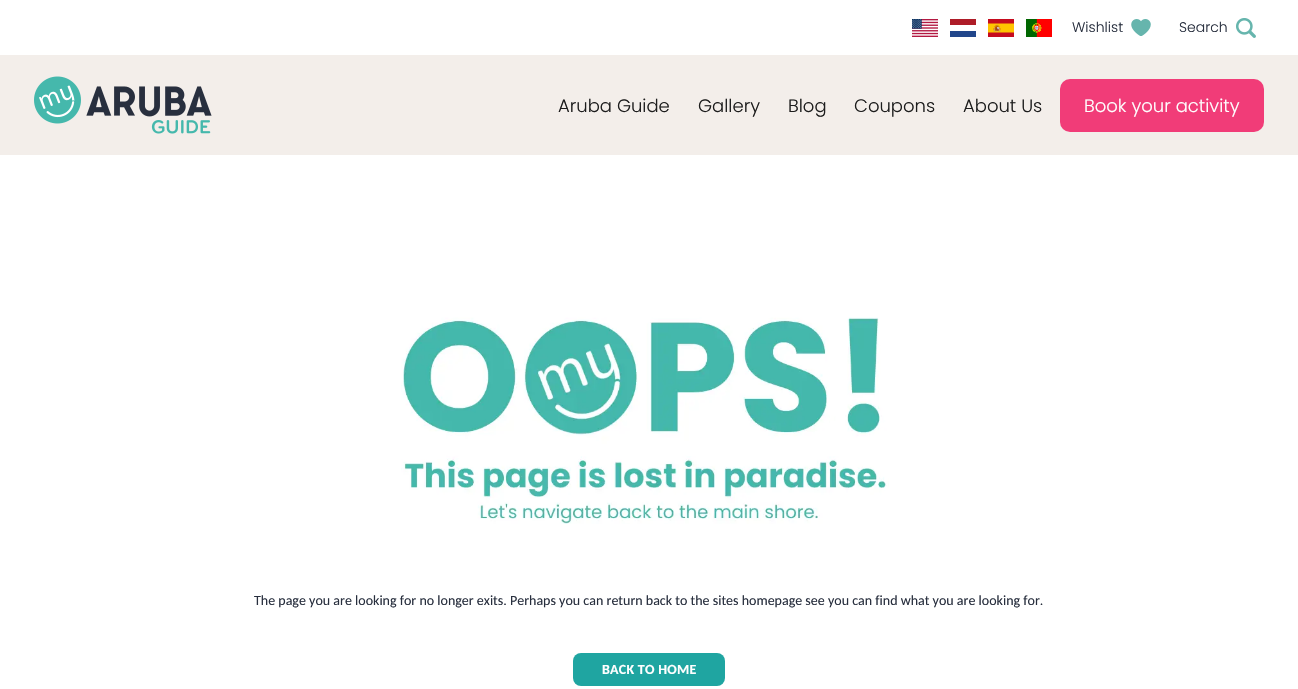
#include "include/core/SkBlurTypes.h"
#include "include/core/SkCanvas.h"
#include "include/core/SkData.h"
#include "include/core/SkFont.h"
#include "include/core/SkFontMgr.h"
#include "include/core/SkImage.h"
#include "include/core/SkMaskFilter.h"
#include "include/core/SkPaint.h"
#include "include/core/SkPathBuilder.h"
#include "include/core/SkTextBlob.h"
#include "include/effects/SkDashPathEffect.h"
#include "include/effects/SkGradientShader.h"
#include "include/utils/SkParsePath.h"

extern sk_sp<SkFontMgr> fontMgr;

void draw(SkCanvas* canvas) {
    SkPaint p;
    p.setAntiAlias(true);
    auto font = [&](const char* family, int weight, float size, bool italic = false) {
        SkFontStyle style(weight, SkFontStyle::kNormal_Width,
            italic ? SkFontStyle::kItalic_Slant : SkFontStyle::kUpright_Slant);
        SkFont result(fontMgr->matchFamilyStyle(family, style), size);
        result.setSubpixel(true);
        return result;
    };
    auto drawTracked = [&](const char* s, float x, float y, const SkFont& font, const SkPaint& ink, float letter, float word) {
        std::vector<SkGlyphID> glyphs(font.countText(s, strlen(s), SkTextEncoding::kUTF8));
        std::vector<float> xs(glyphs.size());
        font.textToGlyphs(s, strlen(s), SkTextEncoding::kUTF8, glyphs);
        font.getXPos(glyphs, xs, x);
        float extra = 0;
        for (size_t i = 0; i < glyphs.size(); i++) {
            xs[i] += extra;
            extra += letter + word * (glyphs[i] == font.unicharToGlyph(' '));
        }
        canvas->drawTextBlob(SkTextBlob::MakeFromPosHGlyphs(glyphs, xs, y, font), 0, 0, ink);
    };
    auto drawPhoto = [&](const char* path, float l, float t, float r, float b) {
        auto image = SkImages::DeferredFromEncodedData(SkData::MakeFromFileName(path));
        canvas->drawImageRect(image, SkRect::MakeLTRB(l, t, r, b), SkSamplingOptions());
    };
    canvas->clear(0xFFFFFFFF);
    drawPhoto("media/1.png", 912, 19, 938, 37);
    p.setColor(0xFF21468B);
    canvas->drawRect(SkRect::MakeLTRB(950, 31, 976, 37), p);
    p.setColor(0xFFAE1C28);
    canvas->drawRect(SkRect::MakeLTRB(950, 19, 976, 25), p);
    drawPhoto("media/2.png", 988, 19, 1014, 37);
    drawPhoto("media/3.png", 1026, 19, 1052, 37);
    auto font1 = font("Poppins", 300, 14);
    p.setColor(0xFF282F3E);
    canvas->drawString("Wishlist", 1072, 32, font1, p);
    drawPhoto("media/4.png", 1131, 19, 1151, 36);
    canvas->drawString("Search", 1179, 32, font1, p);
    drawPhoto("media/5.png", 1236, 18, 1256, 38);
    p.setColor(0xFFF3EEEA);
    canvas->drawRect(SkRect::MakeLTRB(0, 55, 1298, 155), p);
    drawPhoto("media/6.png", 34, 76, 212, 134);
    auto font2 = font("Poppins", 300, 18);
    p.setColor(0xFF1D1D1D);
    {
        const struct { const char* s; float x, y; } items[] = {
            {"Aruba Guide", 558, 112},
            {"Gallery", 698, 112},
            {"Blog", 788, 112},
            {"Coupons", 854, 112},
            {"About Us", 963, 112},
        };
        for (auto [s, x, y] : items) {
            canvas->drawString(s, x, y, font2, p);
        }
    }
    p.setColor(0xFFF13C78);
    canvas->drawRoundRect(SkRect::MakeLTRB(1060, 79, 1264, 132), 10, 10, p);
    p.setColor(0xFFFFFFFF);
    canvas->drawString("Book your activity", 1084, 112, font2, p);
    drawPhoto("media/7.png", 401, 317, 889, 524);
    auto font3 = font("Carlito", 400, 14);
    p.setColor(0xFF282F3E);
    canvas->drawString("The page you are looking for no longer exits. Perhaps you can return back to the sites homepage see you can find what you are looking for.", 254, 605, font3, p);
    p.setColor(0xFF1FA5A1);
    canvas->drawRoundRect(SkRect::MakeLTRB(573, 653, 725, 686), 8, 8, p);
    auto font4 = font("Carlito", 700, 14);
    p.setColor(0xFFFFFFFF);
    drawTracked("BACK TO HOME", 602, 674, font4, p, 0.25f, 0);
}
